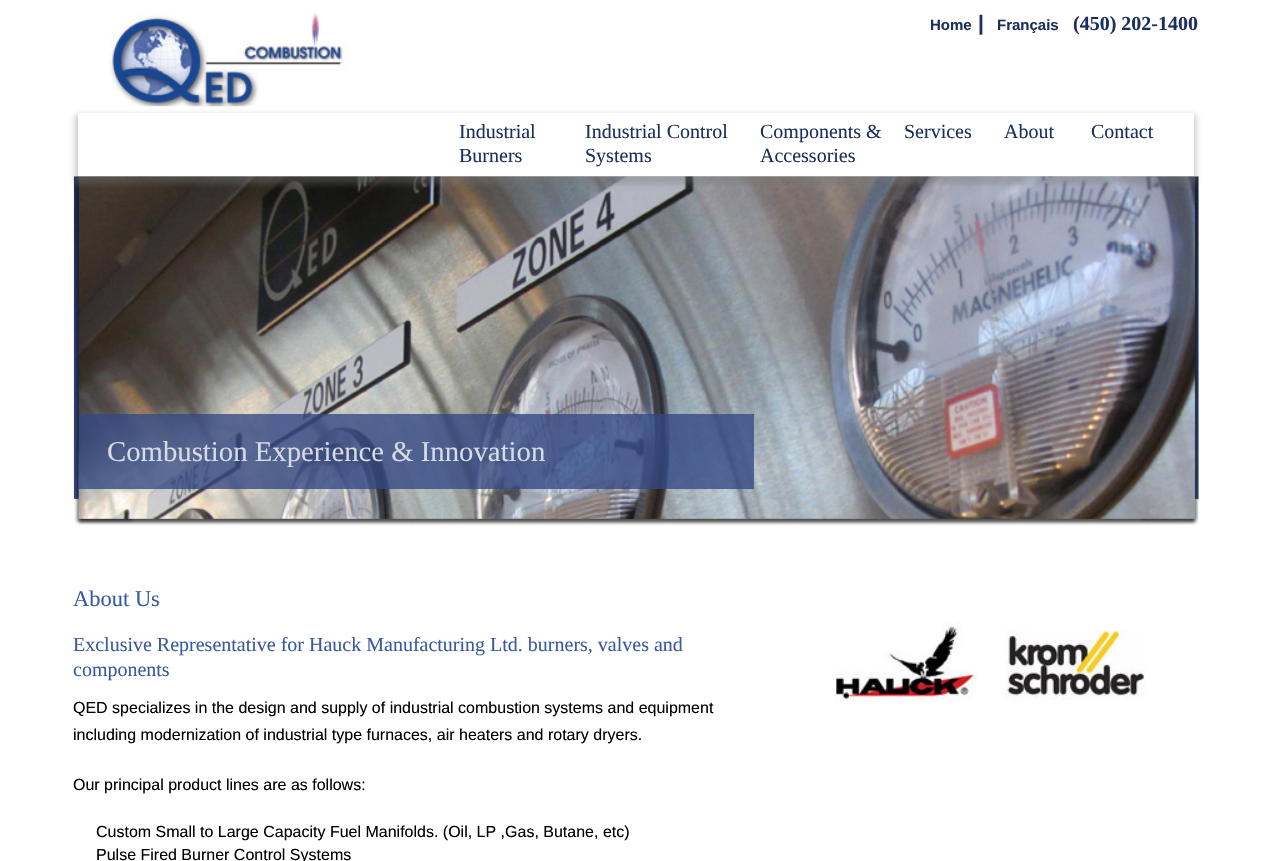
#include "include/core/SkBlurTypes.h"
#include "include/core/SkCanvas.h"
#include "include/core/SkData.h"
#include "include/core/SkFont.h"
#include "include/core/SkFontMgr.h"
#include "include/core/SkImage.h"
#include "include/core/SkMaskFilter.h"
#include "include/core/SkPaint.h"
#include "include/core/SkPathBuilder.h"
#include "include/core/SkTextBlob.h"
#include "include/effects/SkDashPathEffect.h"
#include "include/effects/SkGradientShader.h"
#include "include/utils/SkParsePath.h"

extern sk_sp<SkFontMgr> fontMgr;

void draw(SkCanvas* canvas) {
    SkPaint p;
    p.setAntiAlias(true);
    auto font = [&](const char* family, int weight, float size, bool italic = false) {
        SkFontStyle style(weight, SkFontStyle::kNormal_Width,
            italic ? SkFontStyle::kItalic_Slant : SkFontStyle::kUpright_Slant);
        SkFont result(fontMgr->matchFamilyStyle(family, style), size);
        result.setSubpixel(true);
        return result;
    };
    auto drawPhoto = [&](const char* path, float l, float t, float r, float b) {
        auto image = SkImages::DeferredFromEncodedData(SkData::MakeFromFileName(path));
        canvas->drawImageRect(image, SkRect::MakeLTRB(l, t, r, b), SkSamplingOptions());
    };
    canvas->clear(0xFFFFFFFF);
    drawPhoto("media/1.png", 109, 12, 349, 107);
    auto font1 = font("Liberation Sans", 700, 15);
    p.setColor(0xFF1D2F5C);
    canvas->drawString("Home", 930, 30, font1, p);
    auto font2 = font("Liberation Sans", 700, 21);
    canvas->drawString("|", 978, 30, font2, p);
    canvas->drawString("Français", 997, 30, font1, p);
    auto font3 = font("Liberation Serif", 700, 20);
    canvas->drawString("(450) 202-1400", 1073, 30, font3, p);
    drawPhoto("media/2.png", 73, 176, 1199, 526);
    p.setColor(0x66777777);
    p.setMaskFilter(SkMaskFilter::MakeBlur(kNormal_SkBlurStyle, 3));
    canvas->drawRect(SkRect::MakeLTRB(75, 115, 1196, 184), p);
    p.setMaskFilter(nullptr);
    p.setColor(0xFFFFFFFF);
    canvas->drawRect(SkRect::MakeLTRB(78, 113, 1194, 176), p);
    auto font4 = font("Liberation Serif", 400, 20);
    p.setColor(0xFF1D2F5C);
    {
        const struct { const char* s; float x, y; } items[] = {
            {"Industrial", 459, 138},
            {"Burners", 459, 162},
            {"Industrial Control", 585, 138},
            {"Systems", 585, 162},
            {"Components &", 760, 138},
            {"Accessories", 760, 162},
            {"Services", 904, 138},
            {"About", 1004, 138},
            {"Contact", 1091, 138},
        };
        for (auto [s, x, y] : items) {
            canvas->drawString(s, x, y, font4, p);
        }
    }
    p.setColor(0xC7324883);
    canvas->drawRect(SkRect::MakeLTRB(79, 414, 754, 489), p);
    auto font5 = font("Liberation Serif", 400, 28.75f);
    p.setColor(0xFFD7DBE5);
    canvas->drawString("Combustion Experience & Innovation", 107, 461, font5, p);
    auto font6 = font("Liberation Serif", 400, 22.5f);
    p.setColor(0xFF395AA0);
    canvas->drawString("About Us", 73, 606, font6, p);
    canvas->drawString("Exclusive Representative for Hauck Manufacturing Ltd. burners, valves and", 73, 651, font4, p);
    canvas->drawString("components", 73, 676, font4, p);
    auto font7 = font("Liberation Sans", 400, 16);
    p.setColor(0xFF000000);
    {
        const struct { const char* s; float x, y; } items[] = {
            {"QED specializes in the design and supply of industrial combustion systems and equipment", 73, 713},
            {"including modernization of industrial type furnaces, air heaters and rotary dryers.", 73, 740},
            {"Our principal product lines are as follows:", 73, 790},
            {"Custom Small to Large Capacity Fuel Manifolds. (Oil, LP ,Gas, Butane, etc)", 96, 837},
            {"Pulse Fired Burner Control Systems", 96, 860},
        };
        for (auto [s, x, y] : items) {
            canvas->drawString(s, x, y, font7, p);
        }
    }
    drawPhoto("media/3.png", 834, 621, 979, 702);
    drawPhoto("media/4.png", 1004, 630, 1146, 700);
}
